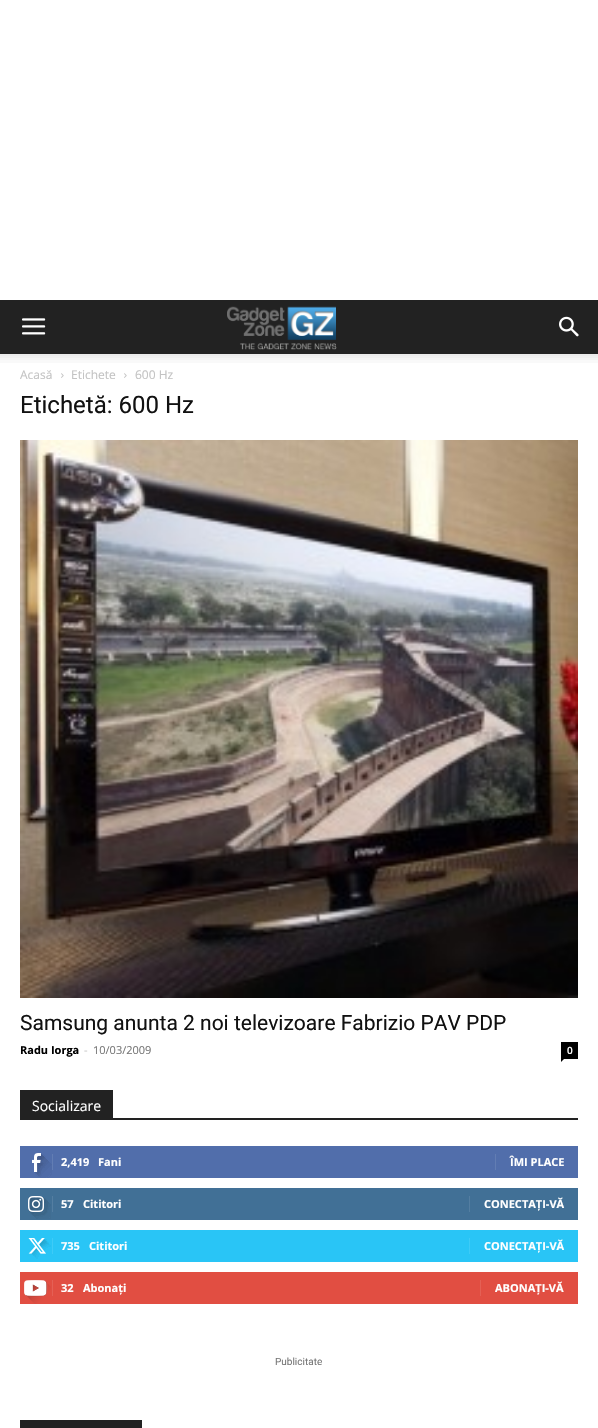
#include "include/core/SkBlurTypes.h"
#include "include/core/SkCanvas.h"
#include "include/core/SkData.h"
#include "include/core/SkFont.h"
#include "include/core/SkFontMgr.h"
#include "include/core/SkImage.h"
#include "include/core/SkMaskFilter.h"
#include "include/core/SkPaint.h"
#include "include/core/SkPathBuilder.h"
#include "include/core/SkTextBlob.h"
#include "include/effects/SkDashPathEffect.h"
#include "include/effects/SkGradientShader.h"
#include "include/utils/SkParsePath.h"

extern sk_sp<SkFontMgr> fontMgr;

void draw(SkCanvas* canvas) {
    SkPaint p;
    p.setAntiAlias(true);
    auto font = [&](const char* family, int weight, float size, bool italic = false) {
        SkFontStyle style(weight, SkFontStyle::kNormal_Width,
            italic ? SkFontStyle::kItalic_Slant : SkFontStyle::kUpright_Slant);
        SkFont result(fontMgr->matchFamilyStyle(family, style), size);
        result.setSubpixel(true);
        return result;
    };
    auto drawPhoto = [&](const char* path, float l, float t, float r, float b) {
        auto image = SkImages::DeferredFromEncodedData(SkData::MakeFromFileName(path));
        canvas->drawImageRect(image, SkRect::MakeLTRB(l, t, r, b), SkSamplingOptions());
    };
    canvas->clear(0xFFFFFFFF);
    p.setColor(0xFF222222);
    canvas->drawRect(SkRect::MakeLTRB(0, 300, 598, 354), p);
    drawPhoto("media/1.png", 22, 318, 46, 335);
    drawPhoto("media/2.png", 227, 306, 337, 350);
    drawPhoto("media/3.png", 559, 316, 579, 337);
    drawPhoto("media/4.png", 0, 354, 598, 363);
    auto font1 = font("Open Sans", 400, 12);
    p.setColor(0xFFC3C3C3);
    canvas->drawString("Acasă", 20, 379, font1, p);
    drawPhoto("media/5.png", 61, 373, 64, 378);
    canvas->drawString("Etichete", 71, 379, font1, p);
    drawPhoto("media/5.png", 124, 373, 127, 378);
    canvas->drawString("600 Hz", 135, 379, font1, p);
    auto font2 = font("Roboto", 400, 24);
    p.setColor(0xFF111111);
    canvas->drawString("Etichetă: 600 Hz", 20, 413, font2, p);
    drawPhoto("media/6.png", 20, 440, 578, 998);
    auto font3 = font("Roboto", 400, 21);
    canvas->drawString("Samsung anunta 2 noi televizoare Fabrizio PAV PDP", 20, 1030, font3, p);
    auto font4 = font("Open Sans", 700, 11);
    p.setColor(0xFF000000);
    canvas->drawString("Radu Iorga", 20, 1054, font4, p);
    auto font5 = font("Open Sans", 400, 11);
    p.setColor(0xFFCCCCCC);
    canvas->drawString("-", 84, 1054, font5, p);
    p.setColor(0xFF767676);
    canvas->drawString("10/03/2009", 93, 1054, font5, p);
    p.setColor(0xFF000000);
    canvas->drawRect(SkRect::MakeLTRB(561, 1042, 578, 1059), p);
    auto font6 = font("Open Sans", 600, 10);
    p.setColor(0xFFFFFFFF);
    canvas->drawString("0", 567, 1054, font6, p);
    p.setColor(0xFF000000);
    canvas->drawPath(SkPathBuilder().moveTo(561, 1059).lineTo(564, 1059).lineTo(561, 1062).close().detach(), p);
    p.setColor(0xFF222222);
    canvas->drawRect(SkRect::MakeLTRB(20, 1118, 578, 1120), p);
    canvas->drawRect(SkRect::MakeLTRB(20, 1090, 113, 1118), p);
    auto font7 = font("Open Sans", 400, 14);
    p.setColor(0xFFFFFFFF);
    canvas->drawString("Socializare", 32, 1111, font7, p);
    p.setColor(0xFF516EAB);
    canvas->drawRect(SkRect::MakeLTRB(20, 1146, 578, 1178), p);
    drawPhoto("media/7.png", 32, 1153, 52, 1178);
    p.setColor(0xFF627DB3);
    canvas->drawRect(SkRect::MakeLTRB(52, 1154, 53, 1170), p);
    p.setColor(0xFFFFFFFF);
    canvas->drawString("2,419", 61, 1166, font4, p);
    canvas->drawString("Fani", 98, 1166, font4, p);
    p.setColor(0xFF627DB3);
    canvas->drawRect(SkRect::MakeLTRB(495, 1154, 496, 1170), p);
    p.setColor(0xFFFFFFFF);
    canvas->drawString("ÎMI PLACE", 510, 1166, font4, p);
    p.setColor(0xFF417096);
    canvas->drawRect(SkRect::MakeLTRB(20, 1188, 578, 1220), p);
    drawPhoto("media/8.png", 28, 1196, 51, 1219);
    p.setColor(0xFF547EA1);
    canvas->drawRect(SkRect::MakeLTRB(52, 1196, 53, 1212), p);
    p.setColor(0xFFFFFFFF);
    canvas->drawString("57", 61, 1208, font4, p);
    canvas->drawString("Cititori", 83, 1208, font4, p);
    p.setColor(0xFF547EA1);
    canvas->drawRect(SkRect::MakeLTRB(469, 1196, 470, 1212), p);
    p.setColor(0xFFFFFFFF);
    canvas->drawString("CONECTAȚI-VĂ", 484, 1208, font4, p);
    p.setColor(0xFF29C5F6);
    canvas->drawRect(SkRect::MakeLTRB(20, 1230, 578, 1262), p);
    drawPhoto("media/9.png", 28, 1238, 51, 1259);
    p.setColor(0xFF3ECBF7);
    canvas->drawRect(SkRect::MakeLTRB(52, 1238, 53, 1254), p);
    p.setColor(0xFFFFFFFF);
    canvas->drawString("735", 61, 1250, font4, p);
    canvas->drawString("Cititori", 89, 1250, font4, p);
    p.setColor(0xFF3ECBF7);
    canvas->drawRect(SkRect::MakeLTRB(469, 1238, 470, 1254), p);
    p.setColor(0xFFFFFFFF);
    canvas->drawString("CONECTAȚI-VĂ", 484, 1250, font4, p);
    p.setColor(0xFFE14E42);
    canvas->drawRect(SkRect::MakeLTRB(20, 1272, 578, 1304), p);
    drawPhoto("media/10.png", 24, 1280, 51, 1304);
    p.setColor(0xFFE46055);
    canvas->drawRect(SkRect::MakeLTRB(52, 1280, 53, 1296), p);
    p.setColor(0xFFFFFFFF);
    canvas->drawString("32", 61, 1292, font4, p);
    canvas->drawString("Abonați", 83, 1292, font4, p);
    p.setColor(0xFFE46055);
    canvas->drawRect(SkRect::MakeLTRB(480, 1280, 481, 1296), p);
    p.setColor(0xFFFFFFFF);
    canvas->drawString("ABONAȚI-VĂ", 495, 1292, font4, p);
    auto font8 = font("Roboto", 400, 10);
    p.setColor(0xFF767676);
    canvas->drawString("Publicitate", 275, 1365, font8, p);
    p.setColor(0xFF222222);
    canvas->drawRect(SkRect::MakeLTRB(20, 1420, 142, 1428), p);
}
